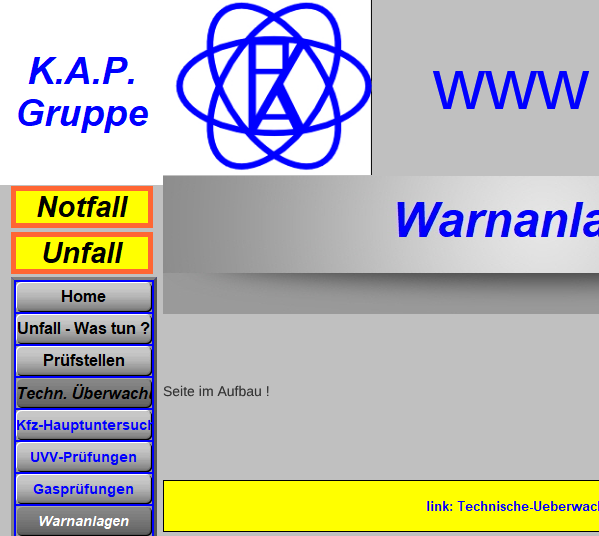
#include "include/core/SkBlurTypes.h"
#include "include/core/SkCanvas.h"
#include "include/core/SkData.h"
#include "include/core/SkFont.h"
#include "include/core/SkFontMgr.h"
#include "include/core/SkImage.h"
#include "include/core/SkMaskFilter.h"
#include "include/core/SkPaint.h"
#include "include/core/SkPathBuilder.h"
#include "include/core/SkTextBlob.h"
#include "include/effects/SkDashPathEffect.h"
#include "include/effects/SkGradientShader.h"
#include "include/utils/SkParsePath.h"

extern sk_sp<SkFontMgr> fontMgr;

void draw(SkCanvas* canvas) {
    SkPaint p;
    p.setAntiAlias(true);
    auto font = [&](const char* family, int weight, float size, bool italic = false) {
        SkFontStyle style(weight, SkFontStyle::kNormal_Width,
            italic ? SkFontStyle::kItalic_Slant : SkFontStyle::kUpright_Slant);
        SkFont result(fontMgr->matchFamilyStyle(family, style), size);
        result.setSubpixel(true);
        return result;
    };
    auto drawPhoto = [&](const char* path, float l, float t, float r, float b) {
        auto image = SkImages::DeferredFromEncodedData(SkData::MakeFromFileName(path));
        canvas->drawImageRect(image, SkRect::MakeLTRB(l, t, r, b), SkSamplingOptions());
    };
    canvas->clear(0xFFC0C0C0);
    drawPhoto("media/1.png", 0, 0, 163, 185);
    drawPhoto("media/2.png", 163, 0, 372, 175);
    auto font1 = font("Liberation Sans", 400, 72);
    p.setColor(0xFF0000FF);
    canvas->drawString("www", 433, 109, font1, p);
    drawPhoto("media/3.png", 163, 176, 599, 314);
    drawPhoto("media/4.png", 11, 186, 153, 228);
    drawPhoto("media/5.png", 11, 232, 153, 274);
    canvas->drawRect(SkRect::MakeLTRB(11, 277, 157, 536), p);
    p.setColor(0xFF808080);
    canvas->drawPath(SkPathBuilder().moveTo(11, 277).lineTo(157, 277).lineTo(154, 280).lineTo(14, 280).close().detach(), p);
    p.setColor(0xFF555555);
    canvas->drawPath(SkPathBuilder().moveTo(157, 277).lineTo(157, 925).lineTo(154, 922).lineTo(154, 280).close().detach(), p);
    p.setColor(0xFF808080);
    canvas->drawPath(SkPathBuilder().moveTo(11, 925).lineTo(11, 277).lineTo(14, 280).lineTo(14, 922).close().detach(), p);
    drawPhoto("media/6.png", 16, 282, 152, 312);
    drawPhoto("media/7.png", 16, 314, 152, 344);
    drawPhoto("media/8.png", 16, 346, 152, 376);
    drawPhoto("media/9.png", 16, 378, 152, 408);
    drawPhoto("media/10.png", 16, 410, 152, 440);
    drawPhoto("media/11.png", 16, 442, 152, 472);
    drawPhoto("media/12.png", 16, 474, 152, 504);
    drawPhoto("media/13.png", 16, 506, 152, 536);
    auto font2 = font("Liberation Sans", 400, 14);
    p.setColor(0xFF333333);
    canvas->drawString("Seite im Aufbau !", 163, 396, font2, p);
    drawPhoto("media/14.png", 163, 480, 599, 532);
}
